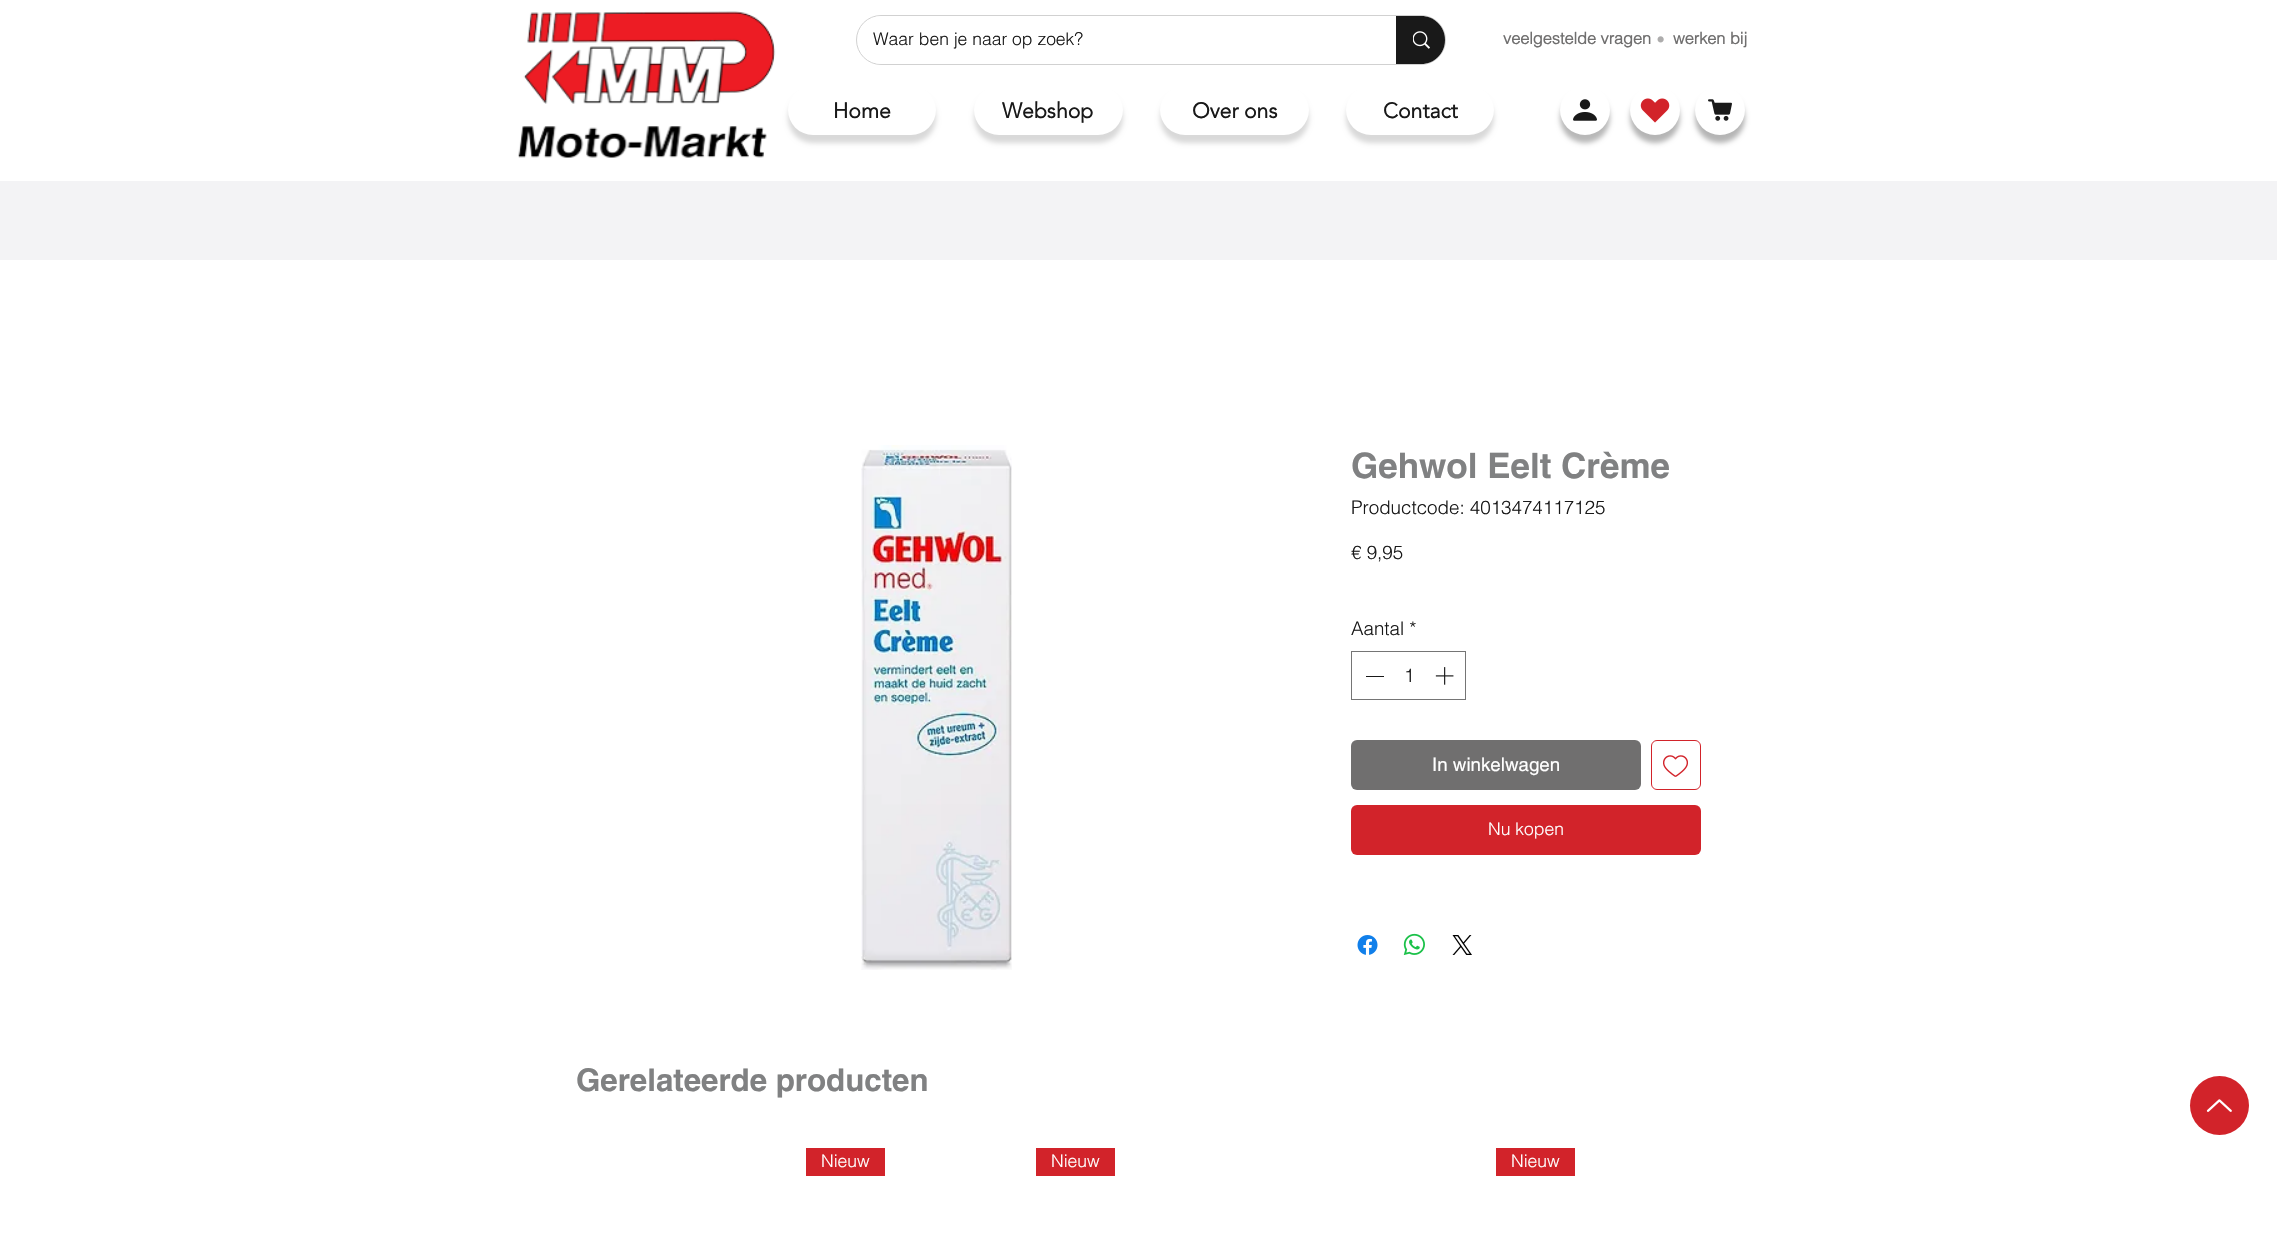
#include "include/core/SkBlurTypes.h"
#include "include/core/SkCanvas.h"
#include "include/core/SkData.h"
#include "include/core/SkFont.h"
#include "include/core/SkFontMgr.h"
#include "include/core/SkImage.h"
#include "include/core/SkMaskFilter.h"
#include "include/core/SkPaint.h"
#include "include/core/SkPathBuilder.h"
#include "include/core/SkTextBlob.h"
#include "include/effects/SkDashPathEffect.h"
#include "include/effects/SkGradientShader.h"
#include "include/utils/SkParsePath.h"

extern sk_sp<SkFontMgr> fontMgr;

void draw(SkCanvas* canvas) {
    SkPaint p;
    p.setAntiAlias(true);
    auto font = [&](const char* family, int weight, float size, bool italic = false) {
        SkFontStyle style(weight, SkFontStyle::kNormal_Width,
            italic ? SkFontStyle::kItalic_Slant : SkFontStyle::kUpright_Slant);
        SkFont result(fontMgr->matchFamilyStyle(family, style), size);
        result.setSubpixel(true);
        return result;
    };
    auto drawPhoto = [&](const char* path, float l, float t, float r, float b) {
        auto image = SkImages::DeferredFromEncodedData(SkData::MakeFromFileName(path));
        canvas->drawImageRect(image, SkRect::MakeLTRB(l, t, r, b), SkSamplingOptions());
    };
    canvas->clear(0xFFFFFFFF);
    drawPhoto("media/1.png", 518, 11, 776, 158);
    p.setStyle(SkPaint::kStroke_Style);
    p.setStrokeWidth(1);
    p.setColor(0xFFD1D1D1);
    canvas->drawRoundRect(SkRect::MakeLTRB(856.5f, 15.5f, 1445.5f, 64.5f), 24.5f, 24.5f, p);
    p.setStyle(SkPaint::kFill_Style);
    p.setColor(0xFFFFFFFF);
    canvas->drawRoundRect(SkRect::MakeLTRB(858, 16, 1445, 64), 24, 24, p);
    auto font1 = font("helvetica", 300, 17.5f);
    p.setColor(0xFF191919);
    canvas->drawString("Waar ben je naar op zoek?", 873, 45, font1, p);
    canvas->drawPath(SkPathBuilder().moveTo(1396, 16).lineTo(1421, 16).cubicTo(1434.5f, 16, 1445, 26.5f, 1445, 40).cubicTo(1445, 53.5f, 1434.5f, 64, 1421, 64).lineTo(1396, 64).close().detach(), p);
    drawPhoto("media/2.png", 1413, 31, 1430, 49);
    auto font2 = font("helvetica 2", 700, 16.25f);
    p.setColor(0xFF706F6F);
    canvas->drawString("veelgestelde vragen", 1503, 44, font2, p);
    drawPhoto("media/3.png", 1657, 36, 1664, 43);
    canvas->drawString("werken bij", 1673, 44, font2, p);
    p.setColor(0x26000000);
    p.setMaskFilter(SkMaskFilter::MakeBlur(kNormal_SkBlurStyle, 2.5f));
    canvas->drawRoundRect(SkRect::MakeLTRB(788, 93, 936, 143), 25, 25, p);
    p.setMaskFilter(nullptr);
    p.setColor(0xFFFFFFFF);
    canvas->drawRoundRect(SkRect::MakeLTRB(788, 85, 936, 135), 25, 25, p);
    auto font3 = font("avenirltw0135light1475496", 700, 21.25f);
    p.setColor(0xFF191919);
    canvas->drawString("Home", 833, 118, font3, p);
    p.setColor(0x26000000);
    p.setMaskFilter(SkMaskFilter::MakeBlur(kNormal_SkBlurStyle, 2.5f));
    canvas->drawRoundRect(SkRect::MakeLTRB(974, 93, 1123, 143), 25, 25, p);
    p.setMaskFilter(nullptr);
    p.setColor(0xFFFFFFFF);
    canvas->drawRoundRect(SkRect::MakeLTRB(974, 85, 1123, 135), 25, 25, p);
    p.setColor(0xFF191919);
    canvas->drawString("Webshop", 1002, 118, font3, p);
    p.setColor(0x26000000);
    p.setMaskFilter(SkMaskFilter::MakeBlur(kNormal_SkBlurStyle, 2.5f));
    canvas->drawRoundRect(SkRect::MakeLTRB(1160, 93, 1309, 143), 25, 25, p);
    p.setMaskFilter(nullptr);
    p.setColor(0xFFFFFFFF);
    canvas->drawRoundRect(SkRect::MakeLTRB(1160, 85, 1309, 135), 25, 25, p);
    p.setColor(0xFF191919);
    canvas->drawString("Over ons", 1192, 118, font3, p);
    p.setColor(0x26000000);
    p.setMaskFilter(SkMaskFilter::MakeBlur(kNormal_SkBlurStyle, 2.5f));
    canvas->drawRoundRect(SkRect::MakeLTRB(1346, 93, 1494, 143), 25, 25, p);
    p.setMaskFilter(nullptr);
    p.setColor(0xFFFFFFFF);
    canvas->drawRoundRect(SkRect::MakeLTRB(1346, 85, 1494, 135), 25, 25, p);
    p.setColor(0xFF191919);
    canvas->drawString("Contact", 1383, 118, font3, p);
    p.setColor(0x47000000);
    p.setMaskFilter(SkMaskFilter::MakeBlur(kNormal_SkBlurStyle, 2.5f));
    canvas->drawRoundRect(SkRect::MakeLTRB(1560, 93, 1610, 143), 25, 25, p);
    p.setMaskFilter(nullptr);
    p.setColor(0xFFFFFFFF);
    canvas->drawCircle(1585, 110, 25, p);
    drawPhoto("media/4.png", 1573, 99, 1597, 121);
    p.setColor(0x4A000000);
    p.setMaskFilter(SkMaskFilter::MakeBlur(kNormal_SkBlurStyle, 2.5f));
    canvas->drawRoundRect(SkRect::MakeLTRB(1630, 93, 1680, 143), 25, 25, p);
    p.setMaskFilter(nullptr);
    p.setColor(0xFFFFFFFF);
    canvas->drawCircle(1655, 110, 25, p);
    drawPhoto("media/5.png", 1640, 98, 1670, 123);
    p.setColor(0x4A000000);
    p.setMaskFilter(SkMaskFilter::MakeBlur(kNormal_SkBlurStyle, 2.5f));
    canvas->drawRoundRect(SkRect::MakeLTRB(1695, 93, 1745, 143), 25, 25, p);
    p.setMaskFilter(nullptr);
    p.setColor(0xFFFFFFFF);
    canvas->drawCircle(1720, 110, 25, p);
    drawPhoto("media/6.png", 1708, 99, 1732, 121);
    p.setColor(0xFFF3F3F5);
    canvas->drawRect(SkRect::MakeLTRB(0, 181, 2277, 260), p);
    drawPhoto("media/7.png", 861, 445, 1012, 970);
    auto font4 = font("helvetica", 700, 35);
    p.setColor(0xFF808182);
    canvas->drawString("Gehwol Eelt Crème", 1351, 478, font4, p);
    auto font5 = font("helvetica", 300, 18.75f);
    p.setColor(0xFF191919);
    {
        const struct { const char* s; float x, y; } items[] = {
            {"Productcode: 4013474117125", 1351, 514},
            {"€ 9,95", 1351, 559},
            {"Aantal *", 1351, 635},
        };
        for (auto [s, x, y] : items) {
            canvas->drawString(s, x, y, font5, p);
        }
    }
    p.setStyle(SkPaint::kStroke_Style);
    p.setColor(0xFF757575);
    canvas->drawRect(SkRect::MakeLTRB(1351.5f, 651.5f, 1465.5f, 699.5f), p);
    p.setStyle(SkPaint::kFill_Style);
    p.setColor(0xFF191919);
    canvas->drawRect(SkRect::MakeLTRB(1366, 676, 1384, 677), p);
    canvas->drawString("1", 1404, 682, font5, p);
    drawPhoto("media/8.png", 1435, 667, 1454, 685);
    p.setColor(0xFF706F6F);
    canvas->drawRoundRect(SkRect::MakeLTRB(1351, 740, 1641, 790), 6, 6, p);
    auto font6 = font("helvetica", 400, 18.75f);
    p.setColor(0xFFFFFFFF);
    canvas->drawString("In winkelwagen", 1432, 771, font6, p);
    p.setStyle(SkPaint::kStroke_Style);
    p.setColor(0xFFD2232A);
    canvas->drawRoundRect(SkRect::MakeLTRB(1651.5f, 740.5f, 1700.5f, 789.5f), 5.5f, 5.5f, p);
    drawPhoto("media/9.png", 1663, 755, 1688, 777);
    p.setStyle(SkPaint::kFill_Style);
    canvas->drawRoundRect(SkRect::MakeLTRB(1351, 805, 1701, 855), 6, 6, p);
    p.setColor(0xFFFFFFFF);
    canvas->drawString("Nu kopen", 1488, 835, font1, p);
    drawPhoto("media/10.png", 1357, 935, 1378, 955);
    drawPhoto("media/11.png", 1403, 933, 1425, 955);
    drawPhoto("media/12.png", 1452, 935, 1472, 955);
    auto font7 = font("helvetica", 700, 31.25f);
    p.setColor(0xFF808182);
    canvas->drawString("Gerelateerde producten", 576, 1091, font7, p);
    p.setColor(0xFFD2232A);
    canvas->drawRect(SkRect::MakeLTRB(806, 1148, 885, 1176), p);
    p.setColor(0xFFFFFFFF);
    canvas->drawString("Nieuw", 821, 1167, font1, p);
    p.setColor(0xFFD2232A);
    canvas->drawRect(SkRect::MakeLTRB(1036, 1148, 1115, 1176), p);
    p.setColor(0xFFFFFFFF);
    canvas->drawString("Nieuw", 1051, 1167, font1, p);
    p.setColor(0xFFD2232A);
    canvas->drawRect(SkRect::MakeLTRB(1496, 1148, 1575, 1176), p);
    p.setColor(0xFFFFFFFF);
    canvas->drawString("Nieuw", 1511, 1167, font1, p);
    p.setColor(0xFFD2232A);
    canvas->drawCircle(2219.5f, 1105.5f, 29.5f, p);
    drawPhoto("media/13.png", 2206, 1099, 2232, 1112);
}
